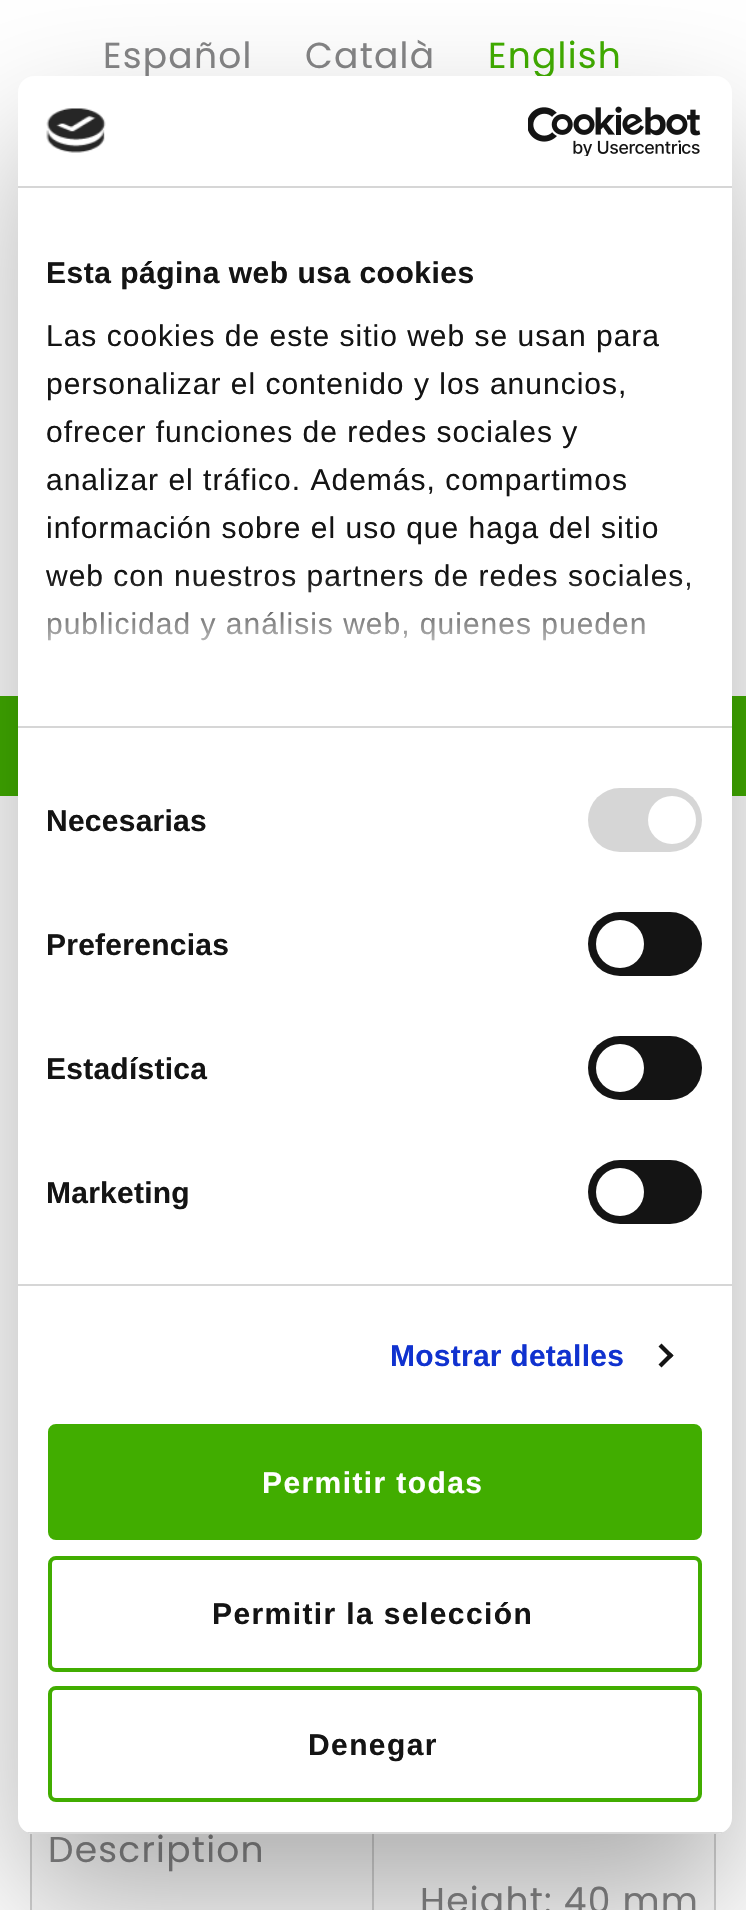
#include "include/core/SkBlurTypes.h"
#include "include/core/SkCanvas.h"
#include "include/core/SkData.h"
#include "include/core/SkFont.h"
#include "include/core/SkFontMgr.h"
#include "include/core/SkImage.h"
#include "include/core/SkMaskFilter.h"
#include "include/core/SkPaint.h"
#include "include/core/SkPathBuilder.h"
#include "include/core/SkTextBlob.h"
#include "include/effects/SkDashPathEffect.h"
#include "include/effects/SkGradientShader.h"
#include "include/utils/SkParsePath.h"

extern sk_sp<SkFontMgr> fontMgr;

void draw(SkCanvas* canvas) {
    SkPaint p;
    p.setAntiAlias(true);
    auto font = [&](const char* family, int weight, float size, bool italic = false) {
        SkFontStyle style(weight, SkFontStyle::kNormal_Width,
            italic ? SkFontStyle::kItalic_Slant : SkFontStyle::kUpright_Slant);
        SkFont result(fontMgr->matchFamilyStyle(family, style), size);
        result.setSubpixel(true);
        return result;
    };
    auto drawTracked = [&](const char* s, float x, float y, const SkFont& font, const SkPaint& ink, float letter, float word) {
        std::vector<SkGlyphID> glyphs(font.countText(s, strlen(s), SkTextEncoding::kUTF8));
        std::vector<float> xs(glyphs.size());
        font.textToGlyphs(s, strlen(s), SkTextEncoding::kUTF8, glyphs);
        font.getXPos(glyphs, xs, x);
        float extra = 0;
        for (size_t i = 0; i < glyphs.size(); i++) {
            xs[i] += extra;
            extra += letter + word * (glyphs[i] == font.unicharToGlyph(' '));
        }
        canvas->drawTextBlob(SkTextBlob::MakeFromPosHGlyphs(glyphs, xs, y, font), 0, 0, ink);
    };
    auto drawPhoto = [&](const char* path, float l, float t, float r, float b) {
        auto image = SkImages::DeferredFromEncodedData(SkData::MakeFromFileName(path));
        canvas->drawImageRect(image, SkRect::MakeLTRB(l, t, r, b), SkSamplingOptions());
    };
    canvas->clear(0xFFFFFFFF);
    auto font1 = font("Poppins", 400, 36);
    p.setColor(0xFF858586);
    drawTracked("Español", 103, 68, font1, p, 1.25f, 0);
    drawTracked("Català", 305, 68, font1, p, 1.25f, 0);
    p.setColor(0xFF41AD00);
    drawTracked("English", 488, 68, font1, p, 1.25f, 0);
    {
        const struct { float l, t, r, b; SkColor color; } items[] = {
            {0, 696, 746, 796, 0xFF41AD00},
            {30, 1833, 32, 1910, 0xFFD1D1D1},
            {32, 1833, 714, 1910, 0xFFF9F9F9},
            {372, 1834, 374, 1910, 0xFFD1D1D1},
        };
        for (auto [l, t, r, b, color] : items) {
            p.setColor(color);
            canvas->drawRect(SkRect::MakeLTRB(l, t, r, b), p);
        }
    }
    p.setColor(0xFF858586);
    drawTracked("Description", 48, 1862, font1, p, 1.25f, 0);
    p.setColor(0xFFD1D1D1);
    canvas->drawRect(SkRect::MakeLTRB(714, 1834, 716, 1910), p);
    p.setColor(0xFF858586);
    drawTracked("Height: 40 mm", 420, 1913, font1, p, 1.25f, 0);
    p.setColor(0x4D000000);
    p.setMaskFilter(SkMaskFilter::MakeBlur(kNormal_SkBlurStyle, 68));
    canvas->drawRoundRect(SkRect::MakeLTRB(18, 140, 732, 1898), 16, 16, p);
    p.setMaskFilter(nullptr);
    p.setColor(0xFFFFFFFF);
    canvas->drawRoundRect(SkRect::MakeLTRB(18, 76, 732, 1834), 16, 16, p);
    p.setColor(0xFFD6D6D6);
    canvas->drawRect(SkRect::MakeLTRB(18, 186, 732, 188), p);
    drawPhoto("media/1.png", 46, 108, 106, 153);
    drawPhoto("media/2.png", 528, 106, 701, 156);
    canvas->drawRect(SkRect::MakeLTRB(18, 726, 732, 728), p);
    auto font2 = font("Liberation Sans", 700, 30);
    p.setColor(0xFF141414);
    drawTracked("Esta página web usa cookies", 46, 283, font2, p, 0.5f, 0);
    auto font3 = font("Liberation Sans", 400, 30);
    {
        const struct { const char* s; float x, y; } items[] = {
            {"Las cookies de este sitio web se usan para", 46, 346},
            {"personalizar el contenido y los anuncios,", 46, 394},
            {"ofrecer funciones de redes sociales y", 46, 442},
            {"analizar el tráfico. Además, compartimos", 46, 490},
            {"información sobre el uso que haga del sitio", 46, 538},
            {"web con nuestros partners de redes sociales,", 46, 586},
            {"publicidad y análisis web, quienes pueden", 46, 634},
        };
        for (auto [s, x, y] : items) {
            drawTracked(s, x, y, font3, p, 1, 0);
        }
    }
    {
        const SkColor colors[] = {0xFFFFFFFF, 0xCCFFFFFF, 0x00FFFFFF};
        const float stops[] = {0, 0.5f, 1};
        const SkPoint ends[] = {{361, 727}, {361, 577}};
        p.setShader(SkGradientShader::MakeLinear(ends, colors, stops, 3, SkTileMode::kClamp));
        p.setAlpha(255);
    }
    canvas->drawRect(SkRect::MakeLTRB(47, 579, 690, 641), p);
    p.setShader(nullptr);
    p.setColor(0xFFD6D6D6);
    canvas->drawRect(SkRect::MakeLTRB(18, 1284, 732, 1286), p);
    p.setColor(0xFF141414);
    drawTracked("Necesarias", 46, 831, font2, p, 0.25f, 0);
    p.setColor(0xFFD6D6D6);
    canvas->drawRoundRect(SkRect::MakeLTRB(588, 788, 702, 852), 32, 32, p);
    p.setColor(0xFFFFFFFF);
    canvas->drawCircle(672, 820, 24, p);
    p.setColor(0xFF141414);
    drawTracked("Preferencias", 46, 955, font2, p, 0.25f, 0);
    canvas->drawRoundRect(SkRect::MakeLTRB(588, 912, 702, 976), 32, 32, p);
    p.setColor(0xFFFFFFFF);
    canvas->drawCircle(620, 944, 24, p);
    p.setColor(0xFF141414);
    drawTracked("Estadística", 46, 1079, font2, p, 0.25f, 0);
    canvas->drawRoundRect(SkRect::MakeLTRB(588, 1036, 702, 1100), 32, 32, p);
    p.setColor(0xFFFFFFFF);
    canvas->drawCircle(620, 1068, 24, p);
    p.setColor(0xFF141414);
    drawTracked("Marketing", 46, 1203, font2, p, 0.25f, 0);
    canvas->drawRoundRect(SkRect::MakeLTRB(588, 1160, 702, 1224), 32, 32, p);
    p.setColor(0xFFFFFFFF);
    canvas->drawCircle(620, 1192, 24, p);
    p.setColor(0xFF1032CF);
    drawTracked("Mostrar detalles", 390, 1366, font2, p, 0.25f, 0);
    p.setColor(0xFF141414);
    canvas->drawPath(SkPathBuilder().moveTo(661.5f, 1343.5f).lineTo(673.5f, 1355.5f).lineTo(670.5f, 1358.5f).lineTo(658.5f, 1346.5f).close().detach(), p);
    canvas->drawPath(SkPathBuilder().moveTo(670.5f, 1352.5f).lineTo(673.5f, 1355.5f).lineTo(661.5f, 1367.5f).lineTo(658.5f, 1364.5f).close().detach(), p);
    canvas->save();
    canvas->clipPath(SkPathBuilder().moveTo(34, 76).lineTo(716, 76).cubicTo(725, 76, 732, 83, 732, 92).lineTo(732, 1818).cubicTo(732, 1827, 725, 1834, 716, 1834).lineTo(34, 1834).cubicTo(25, 1834, 18, 1827, 18, 1818).lineTo(18, 92).cubicTo(18, 83, 25, 76, 34, 76).close().detach(), true);
    p.setColor(0xFFD6D6D6);
    canvas->drawRect(SkRect::MakeLTRB(18, 1832, 732, 1834), p);
    canvas->restore();
    p.setColor(0xFF41AD00);
    canvas->drawRoundRect(SkRect::MakeLTRB(50, 1426, 700, 1538), 6, 6, p);
    p.setStyle(SkPaint::kStroke_Style);
    p.setStrokeWidth(4);
    canvas->drawRoundRect(SkRect::MakeLTRB(50, 1426, 700, 1538), 6, 6, p);
    p.setStyle(SkPaint::kFill_Style);
    p.setColor(0xFFFFFFFF);
    drawTracked("Permitir todas", 262, 1493, font2, p, 1.4f, 0);
    p.setStyle(SkPaint::kStroke_Style);
    p.setColor(0xFF41AD00);
    canvas->drawRoundRect(SkRect::MakeLTRB(50, 1558, 700, 1670), 6, 6, p);
    p.setStyle(SkPaint::kFill_Style);
    p.setColor(0xFF141414);
    drawTracked("Permitir la selección", 212, 1624, font2, p, 1.4f, 0);
    p.setStyle(SkPaint::kStroke_Style);
    p.setColor(0xFF41AD00);
    canvas->drawRoundRect(SkRect::MakeLTRB(50, 1688, 700, 1800), 6, 6, p);
    p.setStyle(SkPaint::kFill_Style);
    p.setColor(0xFF141414);
    drawTracked("Denegar", 308, 1755, font2, p, 1.4f, 0);
}
